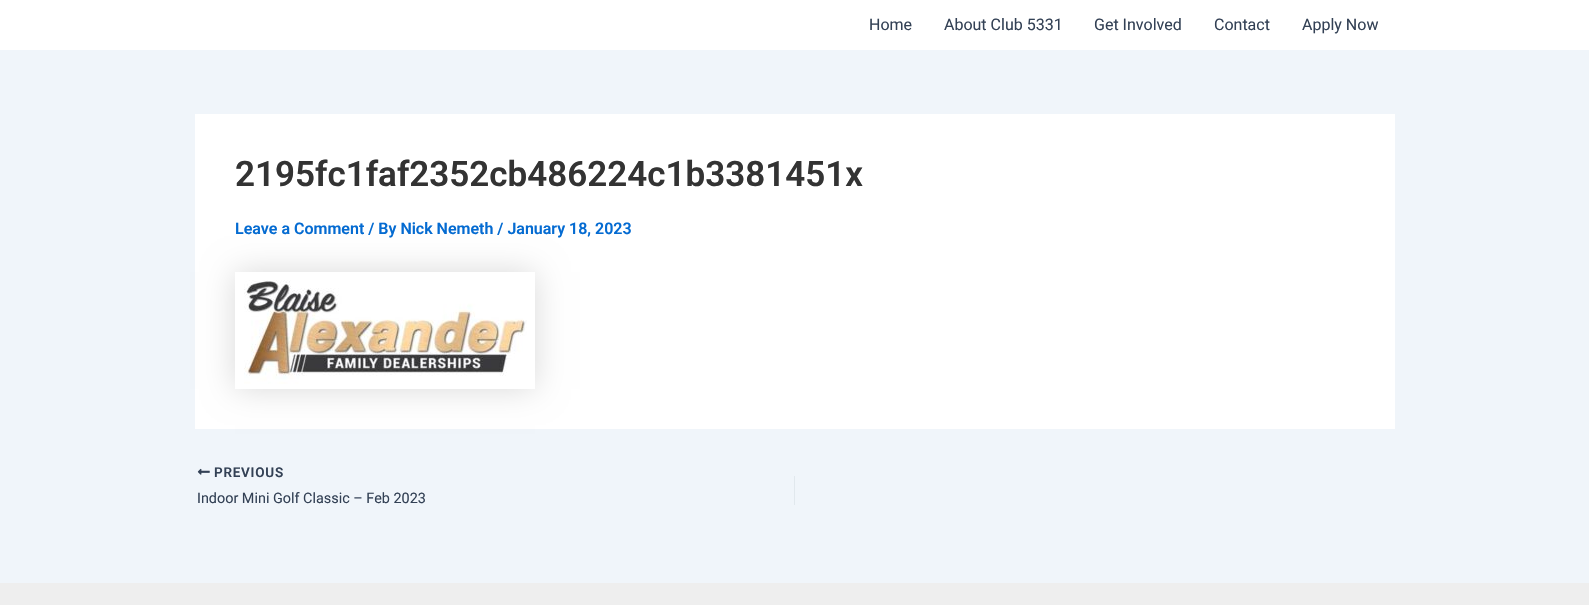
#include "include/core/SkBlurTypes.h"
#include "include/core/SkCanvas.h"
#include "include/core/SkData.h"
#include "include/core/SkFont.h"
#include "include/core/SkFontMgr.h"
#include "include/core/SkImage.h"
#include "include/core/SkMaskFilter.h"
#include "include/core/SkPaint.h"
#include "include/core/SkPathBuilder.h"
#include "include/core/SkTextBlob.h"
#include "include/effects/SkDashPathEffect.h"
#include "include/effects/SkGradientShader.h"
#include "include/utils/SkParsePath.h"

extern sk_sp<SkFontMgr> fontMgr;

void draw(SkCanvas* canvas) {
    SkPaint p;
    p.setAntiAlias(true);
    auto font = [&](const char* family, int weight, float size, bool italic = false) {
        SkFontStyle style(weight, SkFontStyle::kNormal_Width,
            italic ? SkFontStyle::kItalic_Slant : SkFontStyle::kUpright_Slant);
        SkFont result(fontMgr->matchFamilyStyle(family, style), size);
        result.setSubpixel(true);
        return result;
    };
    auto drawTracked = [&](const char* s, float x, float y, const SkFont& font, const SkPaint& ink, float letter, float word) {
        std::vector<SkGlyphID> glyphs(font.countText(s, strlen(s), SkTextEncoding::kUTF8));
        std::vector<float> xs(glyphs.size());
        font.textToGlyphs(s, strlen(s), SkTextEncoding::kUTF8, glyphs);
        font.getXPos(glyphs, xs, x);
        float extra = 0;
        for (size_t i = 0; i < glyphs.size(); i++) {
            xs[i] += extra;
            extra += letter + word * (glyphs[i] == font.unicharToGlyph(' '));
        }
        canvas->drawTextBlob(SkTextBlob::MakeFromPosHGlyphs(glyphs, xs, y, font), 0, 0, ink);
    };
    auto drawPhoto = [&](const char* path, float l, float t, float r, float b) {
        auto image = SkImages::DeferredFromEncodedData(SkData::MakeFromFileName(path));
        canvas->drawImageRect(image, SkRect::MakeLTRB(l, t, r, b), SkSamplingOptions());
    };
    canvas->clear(0xFFF0F5FA);
    p.setColor(0xFFFFFFFF);
    canvas->drawRect(SkRect::MakeLTRB(0, 0, 1589, 50), p);
    auto font1 = font("Roboto", 400, 16);
    p.setColor(0xFF334155);
    {
        const struct { const char* s; float x, y; } items[] = {
            {"Home", 869, 30},
            {"About Club 5331", 944, 30},
            {"Get Involved", 1094, 30},
            {"Contact", 1214, 30},
            {"Apply Now", 1302, 30},
        };
        for (auto [s, x, y] : items) {
            canvas->drawString(s, x, y, font1, p);
        }
    }
    p.setColor(0xFFFFFFFF);
    canvas->drawRect(SkRect::MakeLTRB(195, 114, 1395, 429), p);
    auto font2 = font("Roboto", 600, 35);
    p.setColor(0xFF333333);
    canvas->drawString("2195fc1faf2352cb486224c1b3381451x", 235, 186, font2, p);
    auto font3 = font("Roboto", 600, 16);
    p.setColor(0xFF046BD2);
    canvas->drawString("Leave a Comment / By Nick Nemeth / January 18, 2023", 235, 234, font3, p);
    canvas->save();
    canvas->clipPath(SkPathBuilder(SkPathFillType::kEvenOdd).moveTo(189, 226).lineTo(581, 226).lineTo(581, 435).lineTo(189, 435).close().moveTo(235, 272).lineTo(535, 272).lineTo(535, 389).lineTo(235, 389).close().detach(), true);
    p.setColor(0x26000000);
    p.setMaskFilter(SkMaskFilter::MakeBlur(kNormal_SkBlurStyle, 15));
    canvas->drawRect(SkRect::MakeLTRB(235, 272, 535, 389), p);
    p.setMaskFilter(nullptr);
    canvas->restore();
    drawPhoto("media/1.png", 244, 280, 527, 384);
    drawPhoto("media/2.png", 197, 468, 210, 475);
    auto font4 = font("Roboto", 600, 13.5f);
    p.setColor(0xFF334155);
    drawTracked("PREVIOUS", 214, 477, font4, p, 0.75f, 0);
    auto font5 = font("Roboto", 400, 14.4f);
    canvas->drawString("Indoor Mini Golf Classic – Feb 2023", 197, 503, font5, p);
    p.setColor(0xFFE1E8ED);
    canvas->drawRect(SkRect::MakeLTRB(794, 476, 795, 505), p);
    p.setColor(0xFFEEEEEE);
    canvas->drawRect(SkRect::MakeLTRB(0, 583, 1589, 605), p);
}
